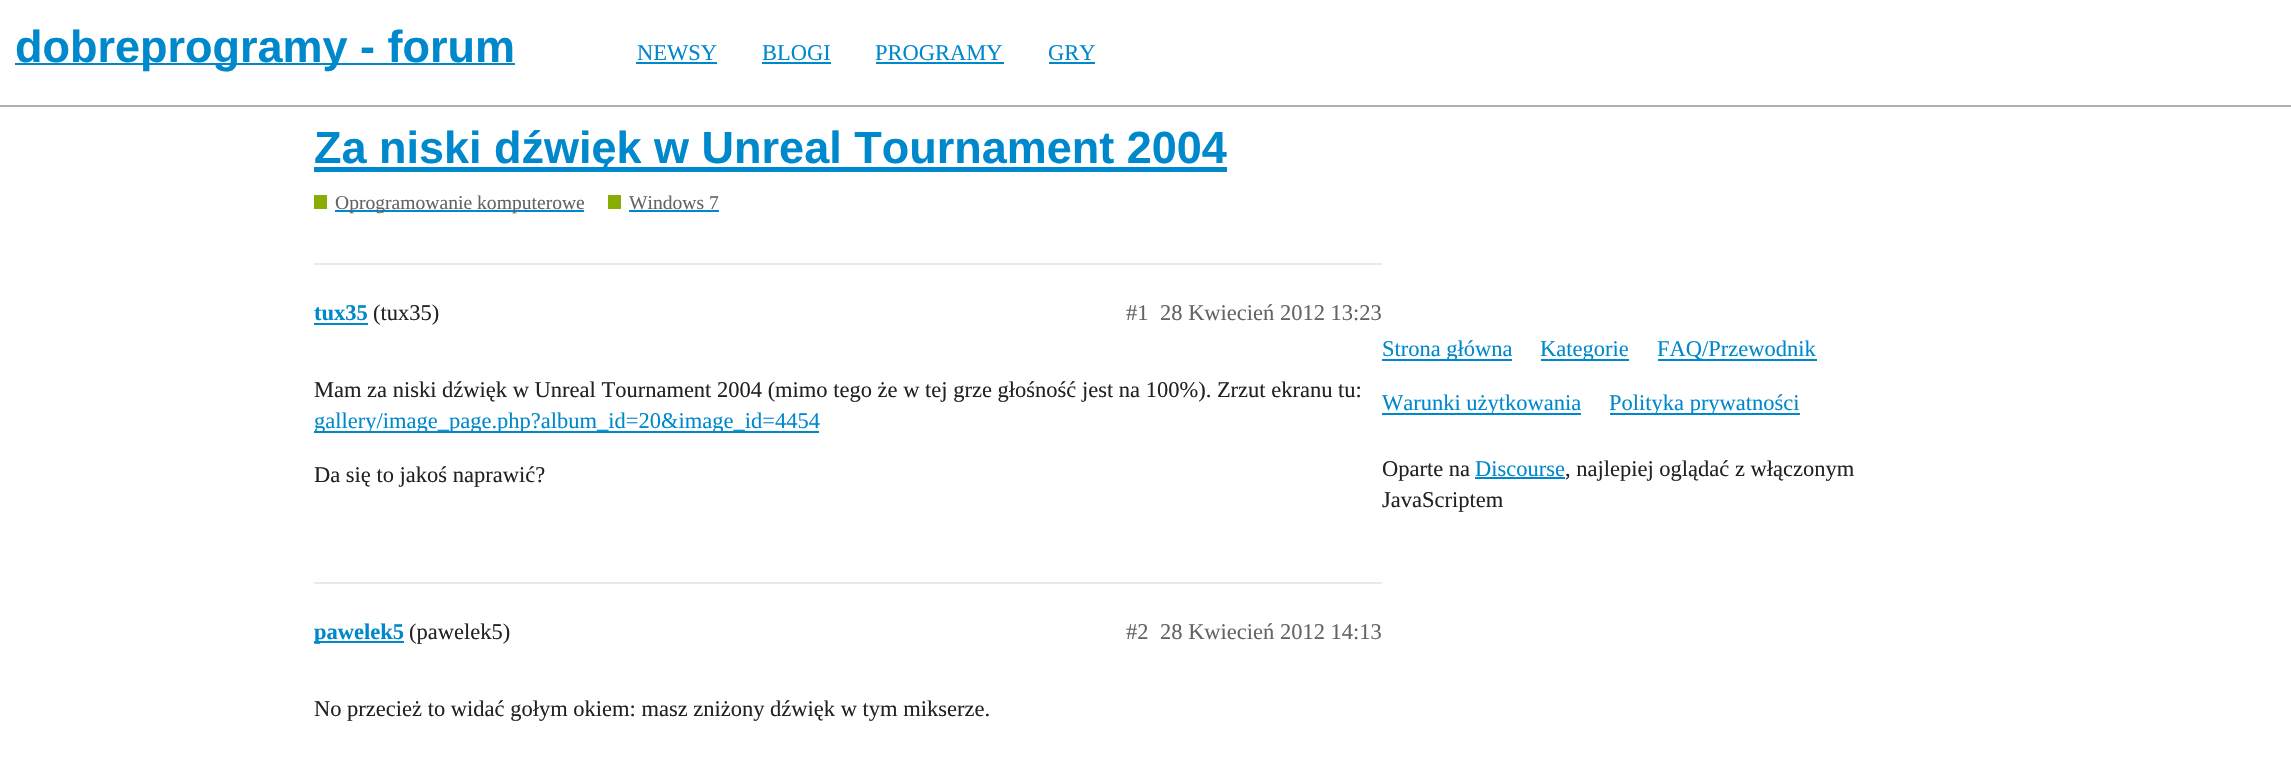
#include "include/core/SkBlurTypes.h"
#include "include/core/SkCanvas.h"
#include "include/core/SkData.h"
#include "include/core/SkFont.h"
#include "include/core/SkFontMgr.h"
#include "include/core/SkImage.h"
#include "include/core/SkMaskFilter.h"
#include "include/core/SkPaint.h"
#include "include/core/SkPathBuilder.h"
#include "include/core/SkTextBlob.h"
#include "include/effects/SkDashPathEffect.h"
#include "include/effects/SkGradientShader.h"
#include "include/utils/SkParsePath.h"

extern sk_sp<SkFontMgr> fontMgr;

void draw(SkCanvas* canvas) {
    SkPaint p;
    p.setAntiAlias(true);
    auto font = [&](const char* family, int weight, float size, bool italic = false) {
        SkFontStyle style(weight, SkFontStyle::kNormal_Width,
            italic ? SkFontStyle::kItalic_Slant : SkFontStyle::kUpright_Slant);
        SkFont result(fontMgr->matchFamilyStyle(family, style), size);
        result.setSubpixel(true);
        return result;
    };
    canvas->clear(0xFFFFFFFF);
    p.setColor(0xFFAFAFAF);
    canvas->drawRect(SkRect::MakeLTRB(0, 105, 2291, 107), p);
    p.setColor(0xFF0088CC);
    canvas->drawRect(SkRect::MakeLTRB(15, 63, 515, 65), p);
    auto font1 = font("Liberation Sans", 700, 45);
    canvas->drawString("dobreprogramy - forum", 15, 62, font1, p);
    auto font2 = font("Liberation Serif", 400, 22.5f);
    canvas->drawString("NEWSY", 637, 60, font2, p);
    canvas->drawRect(SkRect::MakeLTRB(636, 62, 717, 64), p);
    canvas->drawString("BLOGI", 762, 60, font2, p);
    canvas->drawRect(SkRect::MakeLTRB(762, 62, 831, 64), p);
    canvas->drawString("PROGRAMY", 875, 60, font2, p);
    canvas->drawRect(SkRect::MakeLTRB(876, 62, 1004, 64), p);
    canvas->drawString("GRY", 1048, 60, font2, p);
    canvas->drawRect(SkRect::MakeLTRB(1049, 62, 1095, 64), p);
    canvas->drawRect(SkRect::MakeLTRB(314, 167, 1227, 172), p);
    canvas->drawString("Za niski dźwięk w Unreal Tournament 2004", 314, 163, font1, p);
    p.setColor(0xFF88AE04);
    canvas->drawRect(SkRect::MakeLTRB(314, 195, 327, 209), p);
    p.setColor(0xFF0088CC);
    canvas->drawRect(SkRect::MakeLTRB(335, 210, 584, 212), p);
    auto font3 = font("Liberation Serif", 400, 19.6f);
    p.setColor(0xFF646464);
    canvas->drawString("Oprogramowanie komputerowe", 335, 209, font3, p);
    p.setColor(0xFF88AE04);
    canvas->drawRect(SkRect::MakeLTRB(608, 195, 621, 209), p);
    p.setColor(0xFF646464);
    canvas->drawString("Windows 7", 629, 209, font3, p);
    p.setColor(0xFF0088CC);
    canvas->drawRect(SkRect::MakeLTRB(629, 210, 719, 212), p);
    p.setColor(0xFFE9E9E9);
    canvas->drawRect(SkRect::MakeLTRB(314, 263, 1382, 265), p);
    auto font4 = font("Liberation Serif", 700, 22.5f);
    p.setColor(0xFF0088CC);
    canvas->drawString("tux35", 314, 320, font4, p);
    canvas->drawRect(SkRect::MakeLTRB(314, 323, 368, 325), p);
    p.setColor(0xFF222222);
    canvas->drawString("(tux35)", 373, 320, font2, p);
    p.setColor(0xFF646464);
    canvas->drawString("#1", 1126, 320, font2, p);
    canvas->drawString("28 Kwiecień 2012 13:23", 1160, 320, font2, p);
    p.setColor(0xFF222222);
    canvas->drawString("Mam za niski dźwięk w Unreal Tournament 2004 (mimo tego że w tej grze głośność jest na 100%). Zrzut ekranu tu:", 314, 397, font2, p);
    p.setColor(0xFF0088CC);
    canvas->drawRect(SkRect::MakeLTRB(314, 431, 819, 433), p);
    canvas->drawString("gallery/image_page.php?album_id=20&image_id=4454", 314, 428, font2, p);
    p.setColor(0xFF222222);
    canvas->drawString("Da się to jakoś naprawić?", 314, 482, font2, p);
    p.setColor(0xFFE9E9E9);
    canvas->drawRect(SkRect::MakeLTRB(314, 582, 1382, 584), p);
    p.setColor(0xFF0088CC);
    canvas->drawRect(SkRect::MakeLTRB(314, 641, 404, 643), p);
    canvas->drawString("pawelek5", 314, 639, font4, p);
    p.setColor(0xFF222222);
    canvas->drawString("(pawelek5)", 409, 639, font2, p);
    p.setColor(0xFF646464);
    canvas->drawString("#2", 1126, 639, font2, p);
    canvas->drawString("28 Kwiecień 2012 14:13", 1160, 639, font2, p);
    p.setColor(0xFF222222);
    canvas->drawString("No przecież to widać gołym okiem: masz zniżony dźwięk w tym mikserze.", 314, 716, font2, p);
    p.setColor(0xFF0088CC);
    canvas->drawRect(SkRect::MakeLTRB(1382, 359, 1512, 361), p);
    canvas->drawString("Strona główna", 1382, 356, font2, p);
    canvas->drawRect(SkRect::MakeLTRB(1541, 359, 1629, 361), p);
    canvas->drawString("Kategorie", 1540, 356, font2, p);
    canvas->drawRect(SkRect::MakeLTRB(1658, 359, 1817, 361), p);
    canvas->drawString("FAQ/Przewodnik", 1657, 356, font2, p);
    canvas->drawRect(SkRect::MakeLTRB(1382, 413, 1581, 415), p);
    canvas->drawString("Warunki użytkowania", 1382, 410, font2, p);
    canvas->drawRect(SkRect::MakeLTRB(1610, 413, 1800, 415), p);
    canvas->drawString("Polityka prywatności", 1609, 410, font2, p);
    p.setColor(0xFF222222);
    canvas->drawString("Oparte na", 1382, 476, font2, p);
    p.setColor(0xFF0088CC);
    canvas->drawString("Discourse", 1475, 476, font2, p);
    canvas->drawRect(SkRect::MakeLTRB(1475, 477, 1565, 479), p);
    p.setColor(0xFF222222);
    canvas->drawString(", najlepiej oglądać z włączonym", 1565, 476, font2, p);
    canvas->drawString("JavaScriptem", 1382, 507, font2, p);
}
